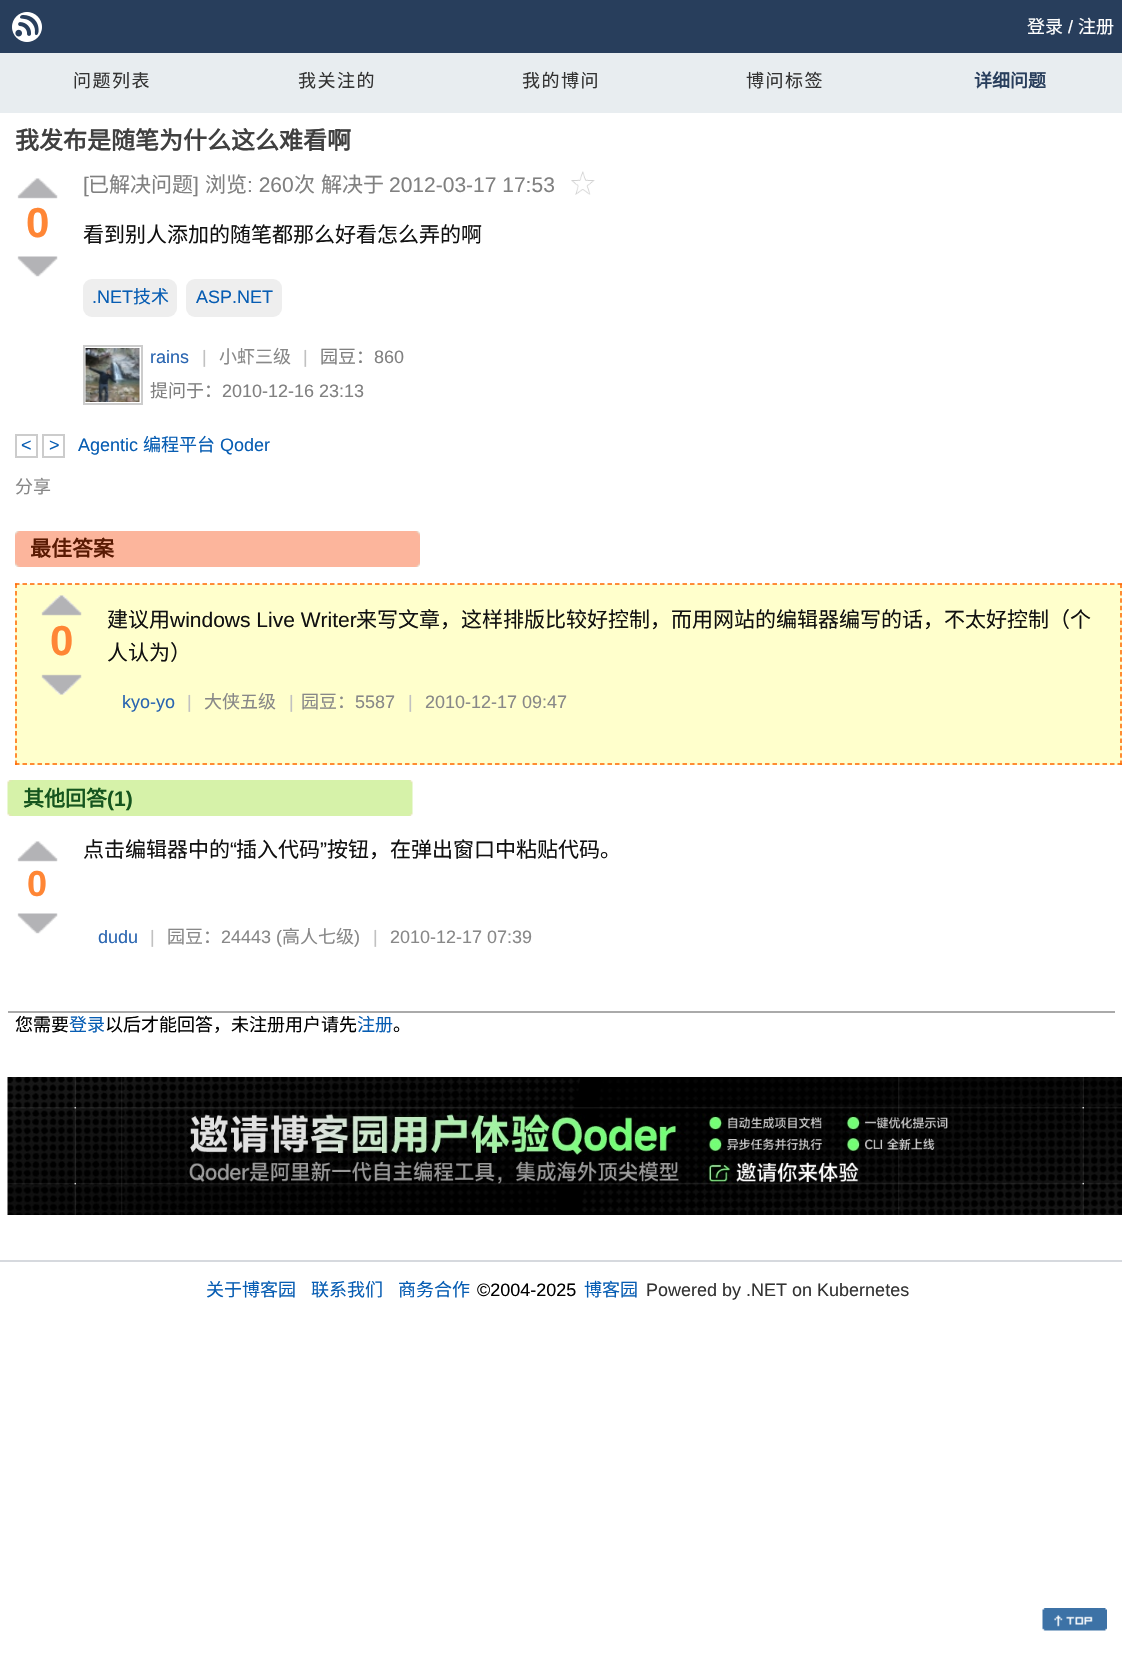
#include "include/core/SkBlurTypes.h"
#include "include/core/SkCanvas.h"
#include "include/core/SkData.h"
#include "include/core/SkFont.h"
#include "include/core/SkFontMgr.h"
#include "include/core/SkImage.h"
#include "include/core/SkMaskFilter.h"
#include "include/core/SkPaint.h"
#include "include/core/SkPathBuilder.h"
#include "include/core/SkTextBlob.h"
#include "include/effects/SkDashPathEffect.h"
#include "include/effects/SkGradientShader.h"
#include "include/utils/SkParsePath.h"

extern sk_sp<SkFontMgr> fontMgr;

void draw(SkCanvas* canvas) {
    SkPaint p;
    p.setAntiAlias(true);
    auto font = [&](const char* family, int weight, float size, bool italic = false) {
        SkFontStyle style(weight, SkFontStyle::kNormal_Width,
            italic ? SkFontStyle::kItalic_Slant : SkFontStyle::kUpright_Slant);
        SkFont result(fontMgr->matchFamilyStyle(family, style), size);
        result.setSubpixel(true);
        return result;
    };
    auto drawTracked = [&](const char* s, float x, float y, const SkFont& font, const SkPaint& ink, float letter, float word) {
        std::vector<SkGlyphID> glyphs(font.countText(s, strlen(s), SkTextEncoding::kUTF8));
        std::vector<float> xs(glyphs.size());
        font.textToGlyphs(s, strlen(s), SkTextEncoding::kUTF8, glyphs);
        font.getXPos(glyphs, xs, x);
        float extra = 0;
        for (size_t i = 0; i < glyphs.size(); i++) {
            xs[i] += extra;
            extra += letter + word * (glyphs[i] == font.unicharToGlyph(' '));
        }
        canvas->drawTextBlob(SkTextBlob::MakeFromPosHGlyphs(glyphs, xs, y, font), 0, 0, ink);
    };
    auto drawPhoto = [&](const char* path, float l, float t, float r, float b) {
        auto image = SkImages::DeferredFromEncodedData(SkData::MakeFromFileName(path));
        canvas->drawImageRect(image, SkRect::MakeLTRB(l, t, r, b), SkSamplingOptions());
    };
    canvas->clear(0xFFFFFFFF);
    p.setColor(0xFF283E5C);
    canvas->drawRect(SkRect::MakeLTRB(0, 0, 1122, 53), p);
    drawPhoto("media/1.png", 12, 12, 42, 42);
    auto font1 = font("Noto Sans CJK SC", 400, 18);
    p.setColor(0xFFFFFFFF);
    canvas->drawString("登录", 1027, 33, font1, p);
    auto font2 = font("Liberation Sans", 400, 18);
    canvas->drawString("/", 1068, 33, font2, p);
    canvas->drawString("注册", 1078, 33, font1, p);
    p.setColor(0xFFE8EDF0);
    canvas->drawRect(SkRect::MakeLTRB(0, 53, 1122, 113), p);
    p.setColor(0xFF333333);
    {
        const struct { const char* s; float x, y; } items[] = {
            {"问题列表", 73, 87},
            {"我关注的", 298, 87},
            {"我的博问", 522, 87},
            {"博问标签", 746, 87},
        };
        for (auto [s, x, y] : items) {
            drawTracked(s, x, y, font1, p, 1.5f, 0);
        }
    }
    auto font3 = font("Noto Sans CJK SC", 700, 18);
    p.setColor(0xFF283E5C);
    canvas->drawString("详细问题", 974, 87, font3, p);
    auto font4 = font("Noto Sans CJK SC", 700, 24);
    p.setColor(0xFF404040);
    canvas->drawString("我发布是随笔为什么这么难看啊", 15, 149, font4, p);
    drawPhoto("media/2.png", 17, 178, 58, 199);
    auto font5 = font("Liberation Sans", 700, 42);
    p.setColor(0xFFFF8635);
    canvas->drawString("0", 26, 237, font5, p);
    drawPhoto("media/3.png", 17, 256, 58, 277);
    auto font6 = font("Liberation Sans", 400, 21);
    p.setColor(0xFF808080);
    canvas->drawString("[", 83, 192, font6, p);
    auto font7 = font("Noto Sans CJK SC", 400, 21);
    canvas->drawString("已解决问题", 88, 192, font7, p);
    canvas->drawString("]", 193, 192, font6, p);
    canvas->drawString("浏览", 205, 192, font7, p);
    canvas->drawString(": 260", 247, 192, font6, p);
    canvas->drawString("次", 294, 192, font7, p);
    canvas->drawString("解决于", 321, 192, font7, p);
    canvas->drawString("2012-03-17 17:53", 389, 192, font6, p);
    drawPhoto("media/4.png", 571, 171, 595, 195);
    p.setColor(0xFF111111);
    canvas->drawString("看到别人添加的随笔都那么好看怎么弄的啊", 83, 242, font7, p);
    p.setColor(0xFFEEEEEE);
    canvas->drawRoundRect(SkRect::MakeLTRB(83, 279, 177, 317), 9, 9, p);
    p.setColor(0xFF075DB3);
    canvas->drawString(".NET", 92, 303, font2, p);
    canvas->drawString("技术", 133, 303, font1, p);
    p.setColor(0xFFEEEEEE);
    canvas->drawRoundRect(SkRect::MakeLTRB(186, 279, 282, 317), 9, 9, p);
    p.setColor(0xFF075DB3);
    canvas->drawString("ASP.NET", 196, 303, font2, p);
    p.setStyle(SkPaint::kStroke_Style);
    p.setStrokeWidth(2);
    p.setColor(0xFFCCCCCC);
    canvas->drawRect(SkRect::MakeLTRB(84, 346, 142, 404), p);
    drawPhoto("media/5.png", 85, 348, 140, 402);
    p.setStyle(SkPaint::kFill_Style);
    p.setColor(0xFF2965B1);
    canvas->drawString("rains", 150, 363, font2, p);
    p.setColor(0xFFC1C1C1);
    canvas->drawString("|", 202, 363, font2, p);
    p.setColor(0xFF888888);
    canvas->drawString("小虾三级", 219, 363, font1, p);
    p.setColor(0xFFC1C1C1);
    canvas->drawString("|", 303, 363, font2, p);
    p.setColor(0xFF808080);
    canvas->drawString("园豆：", 320, 363, font1, p);
    canvas->drawString("860", 374, 363, font2, p);
    canvas->drawString("提问于：", 150, 397, font1, p);
    canvas->drawString("2010-12-16 23:13", 222, 397, font2, p);
    p.setStyle(SkPaint::kStroke_Style);
    p.setColor(0xFFCCCCCC);
    canvas->drawRect(SkRect::MakeLTRB(16, 435, 37, 457), p);
    p.setStyle(SkPaint::kFill_Style);
    p.setColor(0xFF075DB3);
    canvas->drawString("<", 21, 451, font2, p);
    p.setStyle(SkPaint::kStroke_Style);
    p.setColor(0xFFCCCCCC);
    canvas->drawRect(SkRect::MakeLTRB(43, 435, 64, 457), p);
    p.setStyle(SkPaint::kFill_Style);
    p.setColor(0xFF075DB3);
    canvas->drawString(">", 49, 451, font2, p);
    canvas->drawString("Agentic", 78, 451, font2, p);
    canvas->drawString("编程平台", 143, 451, font1, p);
    canvas->drawString("Qoder", 220, 451, font2, p);
    p.setColor(0xFF888888);
    canvas->drawString("分享", 15, 493, font1, p);
    drawPhoto("media/6.png", 15, 531, 420, 567);
    auto font8 = font("Noto Sans CJK SC", 700, 21);
    p.setColor(0xFF5A1A03);
    canvas->drawString("最佳答案", 30, 556, font8, p);
    p.setColor(0xFFFFFFCC);
    canvas->drawRect(SkRect::MakeLTRB(15, 584, 1122, 765), p);
    p.setStyle(SkPaint::kStroke_Style);
    p.setStrokeWidth(1.5f);
    p.setColor(0xFFFF6600);
    p.setPathEffect(SkDashPathEffect::Make({{4.5f, 3}}, 0));
    canvas->drawPath(SkPathBuilder().moveTo(15, 584).lineTo(1122, 584).detach(), p);
    p.setPathEffect(nullptr);
    p.setPathEffect(SkDashPathEffect::Make({{4.5f, 2.88f}}, 0));
    canvas->drawPath(SkPathBuilder().moveTo(1121, 583.5f).lineTo(1121, 765).detach(), p);
    p.setPathEffect(nullptr);
    p.setPathEffect(SkDashPathEffect::Make({{4.5f, 3}}, 0));
    canvas->drawPath(SkPathBuilder().moveTo(15, 764).lineTo(1122, 764).detach(), p);
    p.setPathEffect(nullptr);
    p.setPathEffect(SkDashPathEffect::Make({{4.5f, 2.88f}}, 0));
    canvas->drawPath(SkPathBuilder().moveTo(16, 583.5f).lineTo(16, 765).detach(), p);
    p.setPathEffect(nullptr);
    drawPhoto("media/7.png", 41, 595, 82, 616);
    p.setStyle(SkPaint::kFill_Style);
    p.setColor(0xFFFF8635);
    canvas->drawString("0", 50, 655, font5, p);
    drawPhoto("media/8.png", 41, 674, 82, 695);
    p.setColor(0xFF111111);
    canvas->drawString("建议用", 107, 627, font7, p);
    canvas->drawString("windows Live Writer", 170, 627, font6, p);
    canvas->drawString("来写文章，这样排版比较好控制，而用网站的编辑器编写的话，不太好控制（个", 356, 627, font7, p);
    canvas->drawString("人认为）", 107, 660, font7, p);
    p.setColor(0xFF2965B1);
    canvas->drawString("kyo-yo", 122, 708, font2, p);
    p.setColor(0xFFC1C1C1);
    canvas->drawString("|", 187, 708, font2, p);
    p.setColor(0xFF888888);
    canvas->drawString("大侠五级", 204, 708, font1, p);
    p.setColor(0xFFC1C1C1);
    canvas->drawString("|", 289, 708, font2, p);
    p.setColor(0xFF888888);
    canvas->drawString("园豆：", 301, 708, font1, p);
    canvas->drawString("5587", 355, 708, font2, p);
    p.setColor(0xFFC1C1C1);
    canvas->drawString("|", 408, 708, font2, p);
    p.setColor(0xFF888888);
    canvas->drawString("2010-12-17 09:47", 425, 708, font2, p);
    drawPhoto("media/9.png", 7, 780, 413, 816);
    p.setColor(0xFF15551E);
    canvas->drawString("其他回答", 23, 806, font8, p);
    auto font9 = font("Liberation Sans", 700, 21);
    canvas->drawString("(1)", 107, 806, font9, p);
    p.setColor(0xFFAAAAAA);
    canvas->drawRect(SkRect::MakeLTRB(8, 1011, 1115, 1013), p);
    drawPhoto("media/2.png", 17, 841, 58, 862);
    auto font10 = font("Liberation Sans", 700, 36);
    p.setColor(0xFFFF8635);
    canvas->drawString("0", 27, 896, font10, p);
    drawPhoto("media/3.png", 17, 913, 58, 934);
    p.setColor(0xFF111111);
    canvas->drawString("点击编辑器中的", 83, 857, font7, p);
    canvas->drawString("“", 230, 857, font6, p);
    canvas->drawString("插入代码", 236, 857, font7, p);
    canvas->drawString("”", 320, 857, font6, p);
    canvas->drawString("按钮，在弹出窗口中粘贴代码。", 327, 857, font7, p);
    p.setColor(0xFF2965B1);
    canvas->drawString("dudu", 98, 943, font2, p);
    p.setColor(0xFFC1C1C1);
    canvas->drawString("|", 150, 943, font2, p);
    p.setColor(0xFF888888);
    canvas->drawString("园豆：", 167, 943, font1, p);
    canvas->drawString("24443 (", 221, 943, font2, p);
    canvas->drawString("高人七级", 282, 943, font1, p);
    canvas->drawString(")", 354, 943, font2, p);
    p.setColor(0xFFC1C1C1);
    canvas->drawString("|", 373, 943, font2, p);
    p.setColor(0xFF888888);
    canvas->drawString("2010-12-17 07:39", 390, 943, font2, p);
    p.setColor(0xFF000000);
    canvas->drawString("您需要", 15, 1031, font1, p);
    p.setColor(0xFF075DB3);
    canvas->drawString("登录", 69, 1031, font1, p);
    p.setColor(0xFF000000);
    canvas->drawString("以后才能回答，未注册用户请先", 105, 1031, font1, p);
    p.setColor(0xFF075DB3);
    canvas->drawString("注册", 357, 1031, font1, p);
    p.setColor(0xFF000000);
    canvas->drawString("。", 393, 1031, font1, p);
    drawPhoto("media/10.png", 7, 1077, 1122, 1215);
    p.setColor(0xFFD6D9DE);
    canvas->drawRect(SkRect::MakeLTRB(0, 1260, 1122, 1262), p);
    p.setColor(0xFF075DB3);
    {
        const struct { const char* s; float x, y; } items[] = {
            {"关于博客园", 206, 1296},
            {"联系我们", 311, 1296},
            {"商务合作", 398, 1296},
        };
        for (auto [s, x, y] : items) {
            canvas->drawString(s, x, y, font1, p);
        }
    }
    p.setColor(0xFF000000);
    canvas->drawString("©2004-2025", 477, 1296, font2, p);
    p.setColor(0xFF075DB3);
    canvas->drawString("博客园", 584, 1296, font1, p);
    p.setColor(0xFF333333);
    canvas->drawString("Powered by .NET on Kubernetes", 646, 1296, font2, p);
    drawPhoto("media/11.png", 1042, 1608, 1107, 1631);
}
